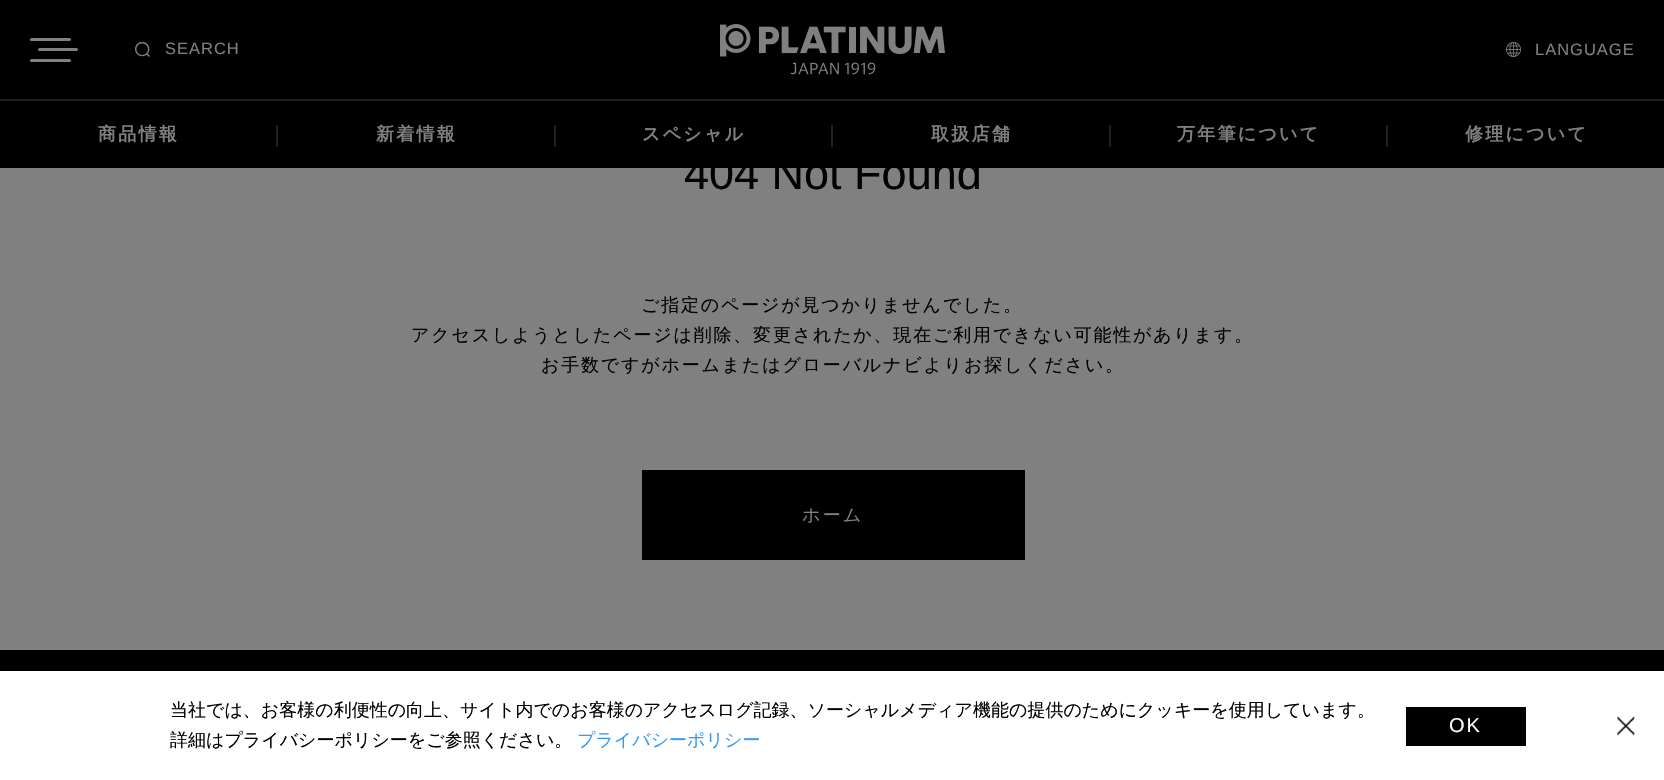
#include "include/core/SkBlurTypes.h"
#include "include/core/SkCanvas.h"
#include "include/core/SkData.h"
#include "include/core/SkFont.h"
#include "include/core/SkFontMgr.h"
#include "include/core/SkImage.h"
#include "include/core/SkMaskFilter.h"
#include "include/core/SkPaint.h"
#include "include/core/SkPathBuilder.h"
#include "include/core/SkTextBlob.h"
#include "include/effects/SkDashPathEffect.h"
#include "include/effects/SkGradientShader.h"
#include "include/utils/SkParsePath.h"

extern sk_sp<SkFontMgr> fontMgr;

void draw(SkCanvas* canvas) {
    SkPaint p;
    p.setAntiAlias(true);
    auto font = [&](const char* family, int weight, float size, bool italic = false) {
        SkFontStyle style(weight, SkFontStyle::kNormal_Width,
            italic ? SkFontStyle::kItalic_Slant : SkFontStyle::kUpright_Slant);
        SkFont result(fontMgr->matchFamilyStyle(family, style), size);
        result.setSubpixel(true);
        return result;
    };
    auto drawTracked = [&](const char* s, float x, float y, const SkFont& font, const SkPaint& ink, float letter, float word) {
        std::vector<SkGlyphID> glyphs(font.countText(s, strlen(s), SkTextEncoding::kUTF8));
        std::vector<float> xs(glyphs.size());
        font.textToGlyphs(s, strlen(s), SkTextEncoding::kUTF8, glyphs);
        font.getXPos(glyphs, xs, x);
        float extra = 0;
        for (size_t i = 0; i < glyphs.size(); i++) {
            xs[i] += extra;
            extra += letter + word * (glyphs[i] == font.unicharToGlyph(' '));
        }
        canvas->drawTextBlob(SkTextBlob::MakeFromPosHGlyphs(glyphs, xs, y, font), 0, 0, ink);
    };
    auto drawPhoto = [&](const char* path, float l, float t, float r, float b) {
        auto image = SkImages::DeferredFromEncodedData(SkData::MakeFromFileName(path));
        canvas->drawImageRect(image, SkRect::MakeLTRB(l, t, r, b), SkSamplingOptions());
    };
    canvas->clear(0xFF808080);
    auto font1 = font("Liberation Sans", 400, 45);
    p.setColor(0xFF020000);
    canvas->drawString("404 Not Found", 684, 189, font1, p);
    p.setColor(0xFF000000);
    canvas->drawRect(SkRect::MakeLTRB(0, 0, 1664, 168), p);
    p.setColor(0xFF202020);
    canvas->drawRect(SkRect::MakeLTRB(0, 99, 1664, 101), p);
    p.setColor(0xFF808080);
    canvas->drawRoundRect(SkRect::MakeLTRB(30, 38, 71, 41), 1.5f, 1.5f, p);
    canvas->drawRoundRect(SkRect::MakeLTRB(38, 48, 78, 51), 1.5f, 1.5f, p);
    canvas->drawRoundRect(SkRect::MakeLTRB(30, 59, 71, 62), 1.5f, 1.5f, p);
    drawPhoto("media/1.png", 720, 24, 945, 75);
    drawPhoto("media/2.png", 135, 42, 150, 57);
    auto font2 = font("Liberation Sans", 400, 16.5f);
    drawTracked("SEARCH", 165, 54, font2, p, 1, 0);
    drawPhoto("media/3.png", 1506, 42, 1521, 57);
    drawTracked("LANGUAGE", 1535, 55, font2, p, 1, 0);
    auto font3 = font("WenQuanYi Zen Hei", 700, 18);
    drawTracked("商品情報", 98, 140, font3, p, 2.25f, 0);
    p.setColor(0xFF202020);
    canvas->drawRect(SkRect::MakeLTRB(276, 125, 278, 147), p);
    p.setColor(0xFF808080);
    drawTracked("新着情報", 376, 140, font3, p, 2.25f, 0);
    p.setColor(0xFF202020);
    canvas->drawRect(SkRect::MakeLTRB(554, 125, 556, 147), p);
    p.setColor(0xFF808080);
    drawTracked("スペシャル", 642, 140, font3, p, 2.25f, 0);
    p.setColor(0xFF202020);
    canvas->drawRect(SkRect::MakeLTRB(831, 125, 833, 147), p);
    p.setColor(0xFF808080);
    drawTracked("取扱店舗", 931, 140, font3, p, 2.25f, 0);
    p.setColor(0xFF202020);
    canvas->drawRect(SkRect::MakeLTRB(1109, 125, 1111, 147), p);
    p.setColor(0xFF808080);
    drawTracked("万年筆について", 1177, 140, font3, p, 2.25f, 0);
    p.setColor(0xFF202020);
    canvas->drawRect(SkRect::MakeLTRB(1386, 125, 1388, 147), p);
    p.setColor(0xFF808080);
    drawTracked("修理について", 1465, 140, font3, p, 2.25f, 0);
    auto font4 = font("WenQuanYi Zen Hei", 500, 18);
    p.setColor(0xFF020000);
    {
        const struct { const char* s; float x, y; } items[] = {
            {"ご指定のページが見つかりませんでした。", 641, 311},
            {"アクセスしようとしたページは削除、変更されたか、現在ご利用できない可能性があります。", 411, 341},
            {"お手数ですがホームまたはグローバルナビよりお探しください。", 541, 371},
        };
        for (auto [s, x, y] : items) {
            drawTracked(s, x, y, font4, p, 1.8f, 0);
        }
    }
    p.setColor(0xFF000000);
    canvas->drawRect(SkRect::MakeLTRB(642, 470, 1025, 560), p);
    p.setColor(0xFF808080);
    drawTracked("ホーム", 802, 521, font4, p, 2.25f, 0);
    p.setColor(0xFF000000);
    canvas->drawRect(SkRect::MakeLTRB(0, 650, 1664, 671), p);
    p.setColor(0xFFFFFFFF);
    canvas->drawRect(SkRect::MakeLTRB(0, 671, 1664, 780), p);
    p.setColor(0xFF020000);
    canvas->drawString("当社では、お客様の利便性の向上、サイト内でのお客様のアクセスログ記録、ソーシャルメディア機能の提供のためにクッキーを使用しています。", 170, 716, font4, p);
    canvas->drawString("詳細はプライバシーポリシーをご参照ください。", 170, 746, font4, p);
    p.setColor(0xFF359BF5);
    canvas->drawString("プライバシーポリシー", 577, 746, font4, p);
    drawPhoto("media/4.png", 1617, 716, 1635, 736);
    p.setColor(0xFF000000);
    canvas->drawRect(SkRect::MakeLTRB(1406, 707, 1526, 746), p);
    auto font5 = font("Liberation Sans", 400, 20);
    p.setColor(0xFFFFFFFF);
    drawTracked("OK", 1449, 732, font5, p, 2, 0);
    canvas->drawRect(SkRect::MakeLTRB(1617, 717, 1635, 735), p);
    drawPhoto("media/5.png", 1617, 716, 1635, 736);
}
